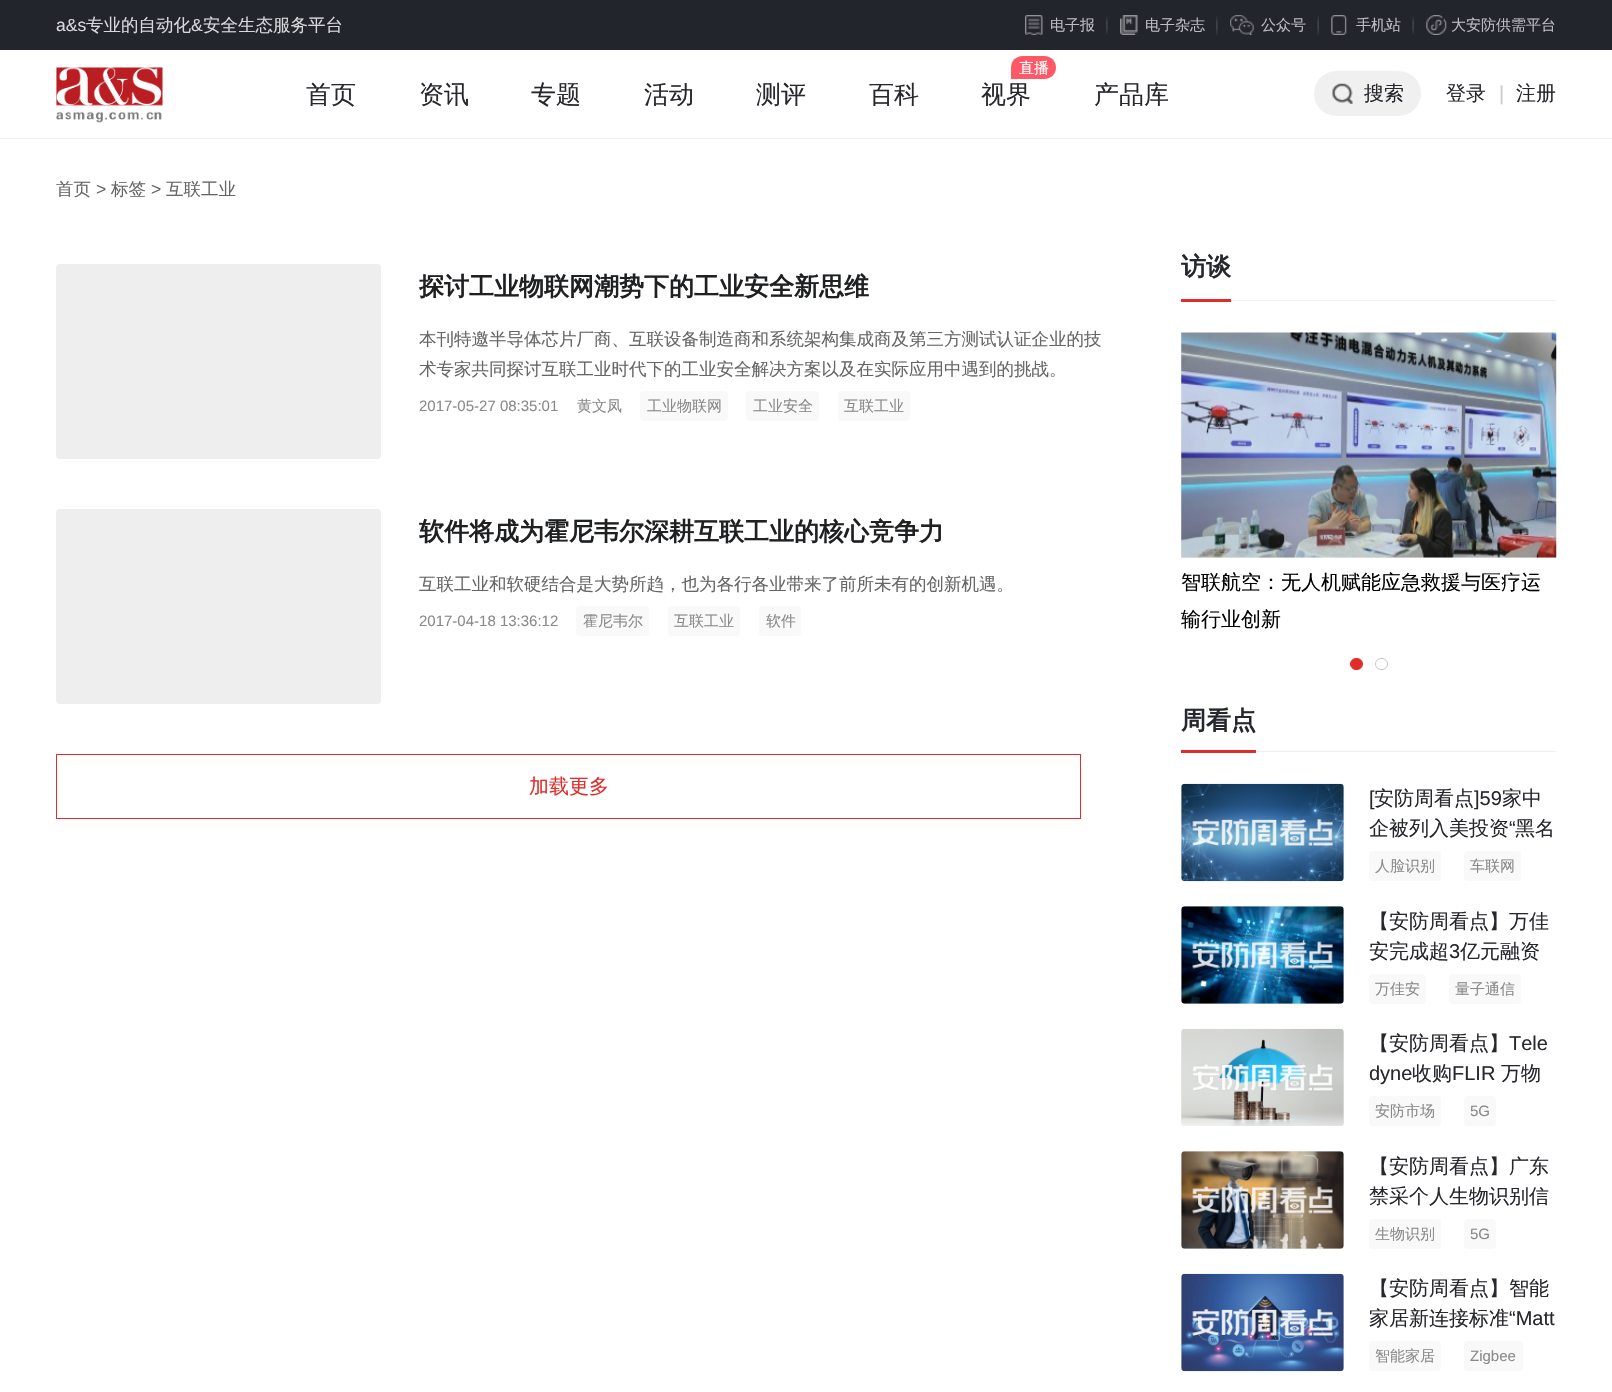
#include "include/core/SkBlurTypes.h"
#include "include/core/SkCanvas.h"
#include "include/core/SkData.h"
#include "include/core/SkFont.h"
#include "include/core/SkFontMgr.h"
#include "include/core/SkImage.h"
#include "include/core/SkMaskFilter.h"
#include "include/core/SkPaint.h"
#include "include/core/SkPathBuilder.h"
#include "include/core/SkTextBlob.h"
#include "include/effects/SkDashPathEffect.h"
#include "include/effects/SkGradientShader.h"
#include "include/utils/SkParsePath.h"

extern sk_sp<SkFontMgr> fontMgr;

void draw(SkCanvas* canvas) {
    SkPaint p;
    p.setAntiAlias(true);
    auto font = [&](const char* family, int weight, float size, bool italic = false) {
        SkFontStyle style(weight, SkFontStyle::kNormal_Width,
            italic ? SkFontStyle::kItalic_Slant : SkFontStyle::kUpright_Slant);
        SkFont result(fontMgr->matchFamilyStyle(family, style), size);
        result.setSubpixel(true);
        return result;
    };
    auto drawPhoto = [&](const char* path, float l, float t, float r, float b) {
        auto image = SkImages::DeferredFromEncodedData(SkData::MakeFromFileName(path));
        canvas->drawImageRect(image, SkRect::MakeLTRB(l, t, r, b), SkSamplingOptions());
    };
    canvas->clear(0xFFFFFFFF);
    p.setColor(0xFF23252C);
    canvas->drawRect(SkRect::MakeLTRB(0, 0, 1612, 50), p);
    auto font1 = font("Liberation Sans", 400, 17.5f);
    p.setColor(0xFFD7D8DC);
    canvas->drawString("a&s", 56, 31, font1, p);
    auto font2 = font("WenQuanYi Zen Hei", 500, 17.5f);
    canvas->drawString("专业的自动化", 86, 31, font2, p);
    canvas->drawString("&", 191, 31, font1, p);
    canvas->drawString("安全生态服务平台", 203, 31, font2, p);
    drawPhoto("media/1.png", 1025, 15, 1043, 35);
    auto font3 = font("WenQuanYi Zen Hei", 500, 15);
    p.setColor(0xFFBCBDC1);
    canvas->drawString("电子报", 1050, 30, font3, p);
    drawPhoto("media/2.png", 1106, 16, 1108, 35);
    drawPhoto("media/3.png", 1120, 15, 1138, 35);
    canvas->drawString("电子杂志", 1145, 30, font3, p);
    drawPhoto("media/2.png", 1216, 16, 1218, 35);
    drawPhoto("media/4.png", 1230, 15, 1254, 35);
    canvas->drawString("公众号", 1261, 30, font3, p);
    drawPhoto("media/5.png", 1317, 16, 1319, 35);
    drawPhoto("media/6.png", 1331, 15, 1347, 35);
    canvas->drawString("手机站", 1356, 30, font3, p);
    drawPhoto("media/5.png", 1412, 16, 1414, 35);
    drawPhoto("media/7.png", 1426, 15, 1447, 35);
    canvas->drawString("大安防供需平台", 1451, 30, font3, p);
    p.setColor(0xFFF0F0F0);
    canvas->drawRect(SkRect::MakeLTRB(0, 138, 1612, 139), p);
    drawPhoto("media/8.png", 56, 67, 163, 123);
    auto font4 = font("WenQuanYi Zen Hei", 500, 25);
    p.setColor(0xFF27282D);
    {
        const struct { const char* s; float x, y; } items[] = {
            {"首页", 306, 103},
            {"资讯", 419, 103},
            {"专题", 531, 103},
            {"活动", 644, 103},
            {"测评", 756, 103},
            {"百科", 869, 103},
        };
        for (auto [s, x, y] : items) {
            canvas->drawString(s, x, y, font4, p);
        }
    }
    p.setColor(0xFFFF5967);
    canvas->drawPath(SkPathBuilder().moveTo(1022.5f, 56).lineTo(1044.5f, 56).cubicTo(1051, 56, 1056, 61, 1056, 67.5f).cubicTo(1056, 74, 1051, 79, 1044.5f, 79).lineTo(1011, 79).lineTo(1011, 67.5f).cubicTo(1011, 61, 1016, 56, 1022.5f, 56).close().detach(), p);
    p.setColor(0xFFFFFFFF);
    canvas->drawString("直播", 1019, 73, font3, p);
    p.setColor(0xFF27282D);
    canvas->drawString("视界", 981, 103, font4, p);
    canvas->drawString("产品库", 1094, 103, font4, p);
    p.setColor(0xFFF0F0F1);
    canvas->drawRoundRect(SkRect::MakeLTRB(1314, 71, 1421, 116), 22.5f, 22.5f, p);
    drawPhoto("media/9.png", 1332, 83, 1353, 104);
    auto font5 = font("WenQuanYi Zen Hei", 500, 20);
    p.setColor(0xFF27282D);
    canvas->drawString("搜索", 1364, 100, font5, p);
    canvas->drawString("登录", 1446, 100, font5, p);
    auto font6 = font("Liberation Sans", 400, 20);
    p.setColor(0xFFCCCCCC);
    canvas->drawString("|", 1499, 100, font6, p);
    p.setColor(0xFF27282D);
    canvas->drawString("注册", 1516, 100, font5, p);
    p.setColor(0xFF666666);
    canvas->drawString("首页", 56, 195, font2, p);
    canvas->drawString(">", 96, 195, font1, p);
    canvas->drawString("标签", 111, 195, font2, p);
    canvas->drawString(">", 151, 195, font1, p);
    canvas->drawString("互联工业", 166, 195, font2, p);
    p.setColor(0xFFEEEEEE);
    canvas->drawRoundRect(SkRect::MakeLTRB(56, 264, 381, 459), 4, 4, p);
    auto font7 = font("WenQuanYi Zen Hei", 700, 25);
    p.setColor(0xFF1F2022);
    canvas->drawString("探讨工业物联网潮势下的工业安全新思维", 419, 295, font7, p);
    p.setColor(0xFF666666);
    canvas->drawString("本刊特邀半导体芯片厂商、互联设备制造商和系统架构集成商及第三方测试认证企业的技", 419, 345, font2, p);
    canvas->drawString("术专家共同探讨互联工业时代下的工业安全解决方案以及在实际应用中遇到的挑战。", 419, 375, font2, p);
    auto font8 = font("Liberation Sans", 400, 15);
    p.setColor(0xFF8A8A8A);
    canvas->drawString("2017-05-27 08:35:01", 419, 411, font8, p);
    canvas->drawString("黄文凤", 577, 411, font3, p);
    p.setColor(0xFFF9F9F9);
    canvas->drawRoundRect(SkRect::MakeLTRB(640, 391, 728, 421), 4, 4, p);
    p.setColor(0xFF8A8A8A);
    canvas->drawString("工业物联网", 647, 411, font3, p);
    p.setColor(0xFFF9F9F9);
    canvas->drawRoundRect(SkRect::MakeLTRB(746, 391, 819, 421), 4, 4, p);
    p.setColor(0xFF8A8A8A);
    canvas->drawString("工业安全", 753, 411, font3, p);
    p.setColor(0xFFF9F9F9);
    canvas->drawRoundRect(SkRect::MakeLTRB(838, 391, 910, 421), 4, 4, p);
    p.setColor(0xFF8A8A8A);
    canvas->drawString("互联工业", 844, 411, font3, p);
    p.setColor(0xFFEEEEEE);
    canvas->drawRoundRect(SkRect::MakeLTRB(56, 509, 381, 704), 4, 4, p);
    p.setColor(0xFF1F2022);
    canvas->drawString("软件将成为霍尼韦尔深耕互联工业的核心竞争力", 419, 540, font7, p);
    p.setColor(0xFF666666);
    canvas->drawString("互联工业和软硬结合是大势所趋，也为各行各业带来了前所未有的创新机遇。", 419, 590, font2, p);
    p.setColor(0xFF8A8A8A);
    canvas->drawString("2017-04-18 13:36:12", 419, 626, font8, p);
    p.setColor(0xFFF9F9F9);
    canvas->drawRoundRect(SkRect::MakeLTRB(576, 606, 649, 636), 4, 4, p);
    p.setColor(0xFF8A8A8A);
    canvas->drawString("霍尼韦尔", 583, 626, font3, p);
    p.setColor(0xFFF9F9F9);
    canvas->drawRoundRect(SkRect::MakeLTRB(668, 606, 740, 636), 4, 4, p);
    p.setColor(0xFF8A8A8A);
    canvas->drawString("互联工业", 674, 626, font3, p);
    p.setColor(0xFFF9F9F9);
    canvas->drawRoundRect(SkRect::MakeLTRB(759, 606, 801, 636), 4, 4, p);
    p.setColor(0xFF8A8A8A);
    canvas->drawString("软件", 766, 626, font3, p);
    p.setStyle(SkPaint::kStroke_Style);
    p.setStrokeWidth(1);
    p.setColor(0xFFE22C29);
    canvas->drawRect(SkRect::MakeLTRB(56.5f, 754.5f, 1080.5f, 818.5f), p);
    p.setStyle(SkPaint::kFill_Style);
    canvas->drawString("加载更多", 529, 793, font5, p);
    p.setColor(0xFFF0F0F0);
    canvas->drawRect(SkRect::MakeLTRB(1231, 300, 1556, 301), p);
    p.setColor(0xFFE22C29);
    canvas->drawRect(SkRect::MakeLTRB(1181, 299, 1231, 302), p);
    p.setColor(0xFF27282D);
    canvas->drawString("访谈", 1181, 275, font7, p);
    p.setColor(0xFFEEEEEE);
    canvas->drawRect(SkRect::MakeLTRB(1181, 333, 1556, 558), p);
    drawPhoto("media/10.png", 1181, 332, 1557, 558);
    p.setColor(0xFF000000);
    canvas->drawString("智联航空：无人机赋能应急救援与医疗运", 1181, 589, font5, p);
    canvas->drawString("输行业创新", 1181, 626, font5, p);
    p.setColor(0xFFE22C29);
    canvas->drawRoundRect(SkRect::MakeLTRB(1350.5f, 658.5f, 1362.5f, 669.5f), 5.5f, 5.5f, p);
    p.setStyle(SkPaint::kStroke_Style);
    canvas->drawRoundRect(SkRect::MakeLTRB(1350.5f, 658.5f, 1362.5f, 669.5f), 5.5f, 5.5f, p);
    p.setColor(0xFFC6C6C6);
    canvas->drawRoundRect(SkRect::MakeLTRB(1375.5f, 658.5f, 1387.5f, 669.5f), 5.5f, 5.5f, p);
    p.setStyle(SkPaint::kFill_Style);
    p.setColor(0xFFF0F0F0);
    canvas->drawRect(SkRect::MakeLTRB(1256, 751, 1556, 752), p);
    p.setColor(0xFFE22C29);
    canvas->drawRect(SkRect::MakeLTRB(1181, 750, 1256, 753), p);
    p.setColor(0xFF27282D);
    canvas->drawString("周看点", 1181, 729, font7, p);
    p.setColor(0xFFEEEEEE);
    canvas->drawRoundRect(SkRect::MakeLTRB(1181, 784, 1344, 881), 4, 4, p);
    drawPhoto("media/11.png", 1181, 783, 1344, 882);
    p.setColor(0xFF27282D);
    canvas->drawString("[", 1369, 805, font6, p);
    canvas->drawString("安防周看点", 1374, 805, font5, p);
    canvas->drawString("]59", 1474, 805, font6, p);
    canvas->drawString("家中", 1502, 805, font5, p);
    canvas->drawString("企被列入美投资", 1369, 835, font5, p);
    canvas->drawString("“", 1509, 835, font6, p);
    canvas->drawString("黑名", 1515, 835, font5, p);
    p.setColor(0xFFF9F9F9);
    canvas->drawRoundRect(SkRect::MakeLTRB(1369, 851, 1441, 881), 4, 4, p);
    p.setColor(0xFF8A8A8A);
    canvas->drawString("人脸识别", 1375, 871, font3, p);
    p.setColor(0xFFF9F9F9);
    canvas->drawRoundRect(SkRect::MakeLTRB(1464, 851, 1521, 881), 4, 4, p);
    p.setColor(0xFF8A8A8A);
    canvas->drawString("车联网", 1470, 871, font3, p);
    p.setColor(0xFFEEEEEE);
    canvas->drawRoundRect(SkRect::MakeLTRB(1181, 906, 1344, 1004), 4, 4, p);
    drawPhoto("media/12.png", 1181, 906, 1344, 1004);
    p.setColor(0xFF27282D);
    canvas->drawString("【安防周看点】万佳", 1369, 928, font5, p);
    canvas->drawString("安完成超", 1369, 958, font5, p);
    canvas->drawString("3", 1449, 958, font6, p);
    canvas->drawString("亿元融资", 1460, 958, font5, p);
    p.setColor(0xFFF9F9F9);
    canvas->drawRoundRect(SkRect::MakeLTRB(1369, 974, 1426, 1004), 4, 4, p);
    p.setColor(0xFF8A8A8A);
    canvas->drawString("万佳安", 1375, 994, font3, p);
    p.setColor(0xFFF9F9F9);
    canvas->drawRoundRect(SkRect::MakeLTRB(1449, 974, 1521, 1004), 4, 4, p);
    p.setColor(0xFF8A8A8A);
    canvas->drawString("量子通信", 1455, 994, font3, p);
    p.setColor(0xFFEEEEEE);
    canvas->drawRoundRect(SkRect::MakeLTRB(1181, 1029, 1344, 1126), 4, 4, p);
    drawPhoto("media/13.png", 1181, 1028, 1344, 1126);
    p.setColor(0xFF27282D);
    canvas->drawString("【安防周看点】", 1369, 1050, font5, p);
    canvas->drawString("Tele", 1509, 1050, font6, p);
    canvas->drawString("dyne", 1369, 1080, font6, p);
    canvas->drawString("收购", 1412, 1080, font5, p);
    canvas->drawString("FLIR", 1452, 1080, font6, p);
    canvas->drawString("万物", 1501, 1080, font5, p);
    p.setColor(0xFFF9F9F9);
    canvas->drawRoundRect(SkRect::MakeLTRB(1369, 1096, 1441, 1126), 4, 4, p);
    p.setColor(0xFF8A8A8A);
    canvas->drawString("安防市场", 1375, 1116, font3, p);
    p.setColor(0xFFF9F9F9);
    canvas->drawRoundRect(SkRect::MakeLTRB(1464, 1096, 1496, 1126), 4, 4, p);
    p.setColor(0xFF8A8A8A);
    canvas->drawString("5G", 1470, 1116, font8, p);
    p.setColor(0xFFEEEEEE);
    canvas->drawRoundRect(SkRect::MakeLTRB(1181, 1151, 1344, 1249), 4, 4, p);
    drawPhoto("media/14.png", 1181, 1151, 1344, 1249);
    p.setColor(0xFF27282D);
    canvas->drawString("【安防周看点】广东", 1369, 1173, font5, p);
    canvas->drawString("禁采个人生物识别信", 1369, 1203, font5, p);
    p.setColor(0xFFF9F9F9);
    canvas->drawRoundRect(SkRect::MakeLTRB(1369, 1219, 1441, 1249), 4, 4, p);
    p.setColor(0xFF8A8A8A);
    canvas->drawString("生物识别", 1375, 1239, font3, p);
    p.setColor(0xFFF9F9F9);
    canvas->drawRoundRect(SkRect::MakeLTRB(1464, 1219, 1496, 1249), 4, 4, p);
    p.setColor(0xFF8A8A8A);
    canvas->drawString("5G", 1470, 1239, font8, p);
    p.setColor(0xFFEEEEEE);
    canvas->drawRoundRect(SkRect::MakeLTRB(1181, 1274, 1344, 1371), 4, 4, p);
    drawPhoto("media/15.png", 1181, 1273, 1344, 1372);
    p.setColor(0xFF27282D);
    canvas->drawString("【安防周看点】智能", 1369, 1295, font5, p);
    canvas->drawString("家居新连接标准", 1369, 1325, font5, p);
    canvas->drawString("“Matt", 1509, 1325, font6, p);
    p.setColor(0xFFF9F9F9);
    canvas->drawRoundRect(SkRect::MakeLTRB(1369, 1341, 1441, 1371), 4, 4, p);
    p.setColor(0xFF8A8A8A);
    canvas->drawString("智能家居", 1375, 1361, font3, p);
    p.setColor(0xFFF9F9F9);
    canvas->drawRoundRect(SkRect::MakeLTRB(1464, 1341, 1523, 1371), 4, 4, p);
    p.setColor(0xFF8A8A8A);
    canvas->drawString("Zigbee", 1470, 1361, font8, p);
}
